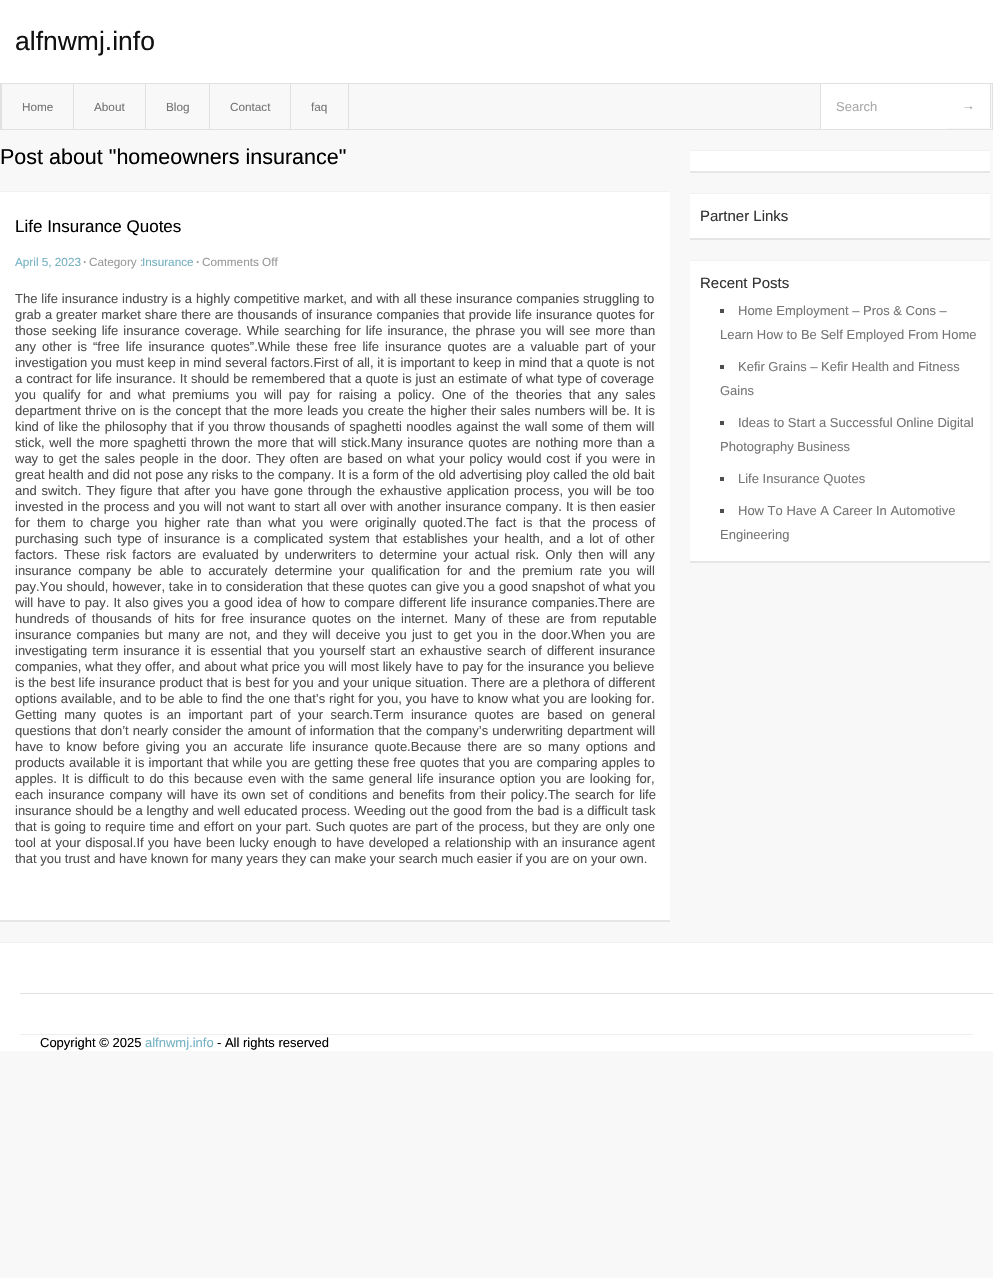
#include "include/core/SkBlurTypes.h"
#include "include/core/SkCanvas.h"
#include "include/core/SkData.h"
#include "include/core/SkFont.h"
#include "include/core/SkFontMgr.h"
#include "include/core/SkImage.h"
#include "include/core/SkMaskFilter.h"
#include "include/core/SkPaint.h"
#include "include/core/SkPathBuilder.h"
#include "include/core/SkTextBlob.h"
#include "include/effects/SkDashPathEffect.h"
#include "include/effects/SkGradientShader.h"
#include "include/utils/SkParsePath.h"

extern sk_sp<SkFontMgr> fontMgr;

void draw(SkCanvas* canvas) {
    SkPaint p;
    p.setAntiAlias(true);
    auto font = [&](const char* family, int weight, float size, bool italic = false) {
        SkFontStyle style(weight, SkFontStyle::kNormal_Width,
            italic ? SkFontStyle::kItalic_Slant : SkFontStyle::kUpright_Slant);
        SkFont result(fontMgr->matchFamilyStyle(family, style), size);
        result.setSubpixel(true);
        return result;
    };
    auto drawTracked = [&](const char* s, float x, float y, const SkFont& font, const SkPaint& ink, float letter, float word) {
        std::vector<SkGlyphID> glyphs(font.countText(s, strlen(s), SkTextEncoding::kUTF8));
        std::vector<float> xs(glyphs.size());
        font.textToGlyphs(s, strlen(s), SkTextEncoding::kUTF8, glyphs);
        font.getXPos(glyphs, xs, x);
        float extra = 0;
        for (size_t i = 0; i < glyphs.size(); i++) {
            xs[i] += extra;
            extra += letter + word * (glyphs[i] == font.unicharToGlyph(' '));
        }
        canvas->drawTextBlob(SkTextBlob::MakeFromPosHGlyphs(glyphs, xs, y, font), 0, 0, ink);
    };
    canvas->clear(0xFFF8F8F8);
    p.setColor(0xFFFFFFFF);
    canvas->drawRect(SkRect::MakeLTRB(0, 0, 993, 83), p);
    auto font1 = font("Liberation Sans", 400, 26.5f);
    p.setColor(0xFF111111);
    canvas->drawString("alfnwmj.info", 15, 50, font1, p);
    p.setStyle(SkPaint::kStroke_Style);
    p.setStrokeWidth(1);
    p.setColor(0xFFE1E1E1);
    canvas->drawRect(SkRect::MakeLTRB(0.5f, 83.5f, 992.5f, 129.5f), p);
    p.setStyle(SkPaint::kFill_Style);
    canvas->drawRect(SkRect::MakeLTRB(1, 84, 2, 130), p);
    canvas->drawRect(SkRect::MakeLTRB(73, 84, 74, 130), p);
    auto font2 = font("Liberation Sans", 400, 11.75f);
    p.setColor(0xFF767575);
    canvas->drawString("Home", 22, 111, font2, p);
    p.setColor(0xFFE1E1E1);
    canvas->drawRect(SkRect::MakeLTRB(145, 84, 146, 130), p);
    p.setColor(0xFF767575);
    canvas->drawString("About", 94, 111, font2, p);
    p.setColor(0xFFE1E1E1);
    canvas->drawRect(SkRect::MakeLTRB(209, 84, 210, 130), p);
    p.setColor(0xFF767575);
    canvas->drawString("Blog", 166, 111, font2, p);
    p.setColor(0xFFE1E1E1);
    canvas->drawRect(SkRect::MakeLTRB(290, 84, 291, 130), p);
    p.setColor(0xFF767575);
    canvas->drawString("Contact", 230, 111, font2, p);
    p.setColor(0xFFE1E1E1);
    canvas->drawRect(SkRect::MakeLTRB(348, 84, 349, 130), p);
    p.setColor(0xFF767575);
    canvas->drawString("faq", 311, 111, font2, p);
    p.setColor(0xFFFFFFFF);
    canvas->drawRect(SkRect::MakeLTRB(821, 84, 946, 129), p);
    p.setColor(0xFFE1E1E1);
    canvas->drawRect(SkRect::MakeLTRB(820, 84, 821, 129), p);
    auto font3 = font("Liberation Sans", 400, 13);
    p.setColor(0xFFAAAAAA);
    canvas->drawString("Search", 836, 111, font3, p);
    p.setColor(0xFFFFFFFF);
    canvas->drawRect(SkRect::MakeLTRB(946, 84, 990, 128), p);
    p.setColor(0xFFE1E1E1);
    canvas->drawRect(SkRect::MakeLTRB(990, 84, 991, 128), p);
    p.setColor(0xFFAAAAAA);
    canvas->drawString("→", 962, 110, font3, p);
    auto font4 = font("Liberation Sans", 400, 21.5f);
    p.setColor(0xFF000000);
    canvas->drawString("Post about \"homeowners insurance\"", 0, 164, font4, p);
    {
        const struct { float l, t, r, b; SkColor color; } items[] = {
            {0, 192, 670, 920, 0xFFFFFFFF},
            {0, 191, 670, 192, 0xFFF1F1F1},
            {0, 920, 670, 922, 0xFFE6E6E6},
        };
        for (auto [l, t, r, b, color] : items) {
            p.setColor(color);
            canvas->drawRect(SkRect::MakeLTRB(l, t, r, b), p);
        }
    }
    auto font5 = font("Liberation Sans", 400, 17);
    p.setColor(0xFF000000);
    canvas->drawString("Life Insurance Quotes", 15, 232, font5, p);
    p.setColor(0xFF76B2C4);
    canvas->drawString("April 5, 2023", 15, 266, font2, p);
    auto font6 = font("Liberation Sans", 700, 11.75f);
    p.setColor(0xFF999999);
    canvas->drawString("·", 83, 266, font6, p);
    canvas->drawString("Category :", 89, 266, font2, p);
    p.setColor(0xFF76B2C4);
    canvas->drawString("Insurance", 142, 266, font2, p);
    p.setColor(0xFF999999);
    canvas->drawString("·", 196, 266, font6, p);
    canvas->drawString("Comments Off", 202, 266, font2, p);
    p.setColor(0xFF4F4F4F);
    drawTracked("The life insurance industry is a highly competitive market, and with all these insurance companies struggling to", 15, 303, font3, p, 0, 0.3f);
    drawTracked("grab a greater market share there are thousands of insurance companies that provide life insurance quotes for", 15, 319, font3, p, 0, 0.3f);
    drawTracked("those seeking life insurance coverage. While searching for life insurance, the phrase you will see more than", 15, 335, font3, p, 0, 1.4f);
    drawTracked("any other is “free life insurance quotes”.While these free life insurance quotes are a valuable part of your", 15, 351, font3, p, 0, 2.4f);
    drawTracked("investigation you must keep in mind several factors.First of all, it is important to keep in mind that a quote is not", 15, 367, font3, p, 0, 0.1f);
    drawTracked("a contract for life insurance. It should be remembered that a quote is just an estimate of what type of coverage", 15, 383, font3, p, 0, 0.3f);
    drawTracked("you qualify for and what premiums you will pay for raising a policy. One of the theories that any sales", 15, 399, font3, p, 0, 3.25f);
    drawTracked("department thrive on is the concept that the more leads you create the higher their sales numbers will be. It is", 15, 415, font3, p, 0, 0.6f);
    drawTracked("kind of like the philosophy that if you throw thousands of spaghetti noodles against the wall some of them will", 15, 431, font3, p, 0, 0.75f);
    drawTracked("stick, well the more spaghetti thrown the more that will stick.Many insurance quotes are nothing more than a", 15, 447, font3, p, 0, 1.1f);
    drawTracked("way to get the sales people in the door. They often are based on what your policy would cost if you were in", 15, 463, font3, p, 0, 1.25f);
    canvas->drawString("great health and did not pose any risks to the company. It is a form of the old advertising ploy called the old bait", 15, 479, font3, p);
    drawTracked("and switch. They figure that after you have gone through the exhaustive application process, you will be too", 15, 495, font3, p, 0, 1.3f);
    drawTracked("invested in the process and you will not want to start all over with another insurance company. It is then easier", 15, 511, font3, p, 0, 0.4f);
    drawTracked("for them to charge you higher rate than what you were originally quoted.The fact is that the process of", 15, 527, font3, p, 0, 3.1f);
    drawTracked("purchasing such type of insurance is a complicated system that establishes your health, and a lot of other", 15, 543, font3, p, 0, 2);
    drawTracked("factors. These risk factors are evaluated by underwriters to determine your actual risk. Only then will any", 15, 559, font3, p, 0, 2.5f);
    drawTracked("insurance company be able to accurately determine your qualification for and the premium rate you will", 15, 575, font3, p, 0, 3.25f);
    drawTracked("pay.You should, however, take in to consideration that these quotes can give you a good snapshot of what you", 15, 591, font3, p, 0, 0.2f);
    drawTracked("will have to pay. It also gives you a good idea of how to compare different life insurance companies.There are", 15, 607, font3, p, 0, 0.6f);
    drawTracked("hundreds of thousands of hits for free insurance quotes on the internet. Many of these are from reputable", 15, 623, font3, p, 0, 2.25f);
    drawTracked("insurance companies but many are not, and they will deceive you just to get you in the door.When you are", 15, 639, font3, p, 0, 1.6f);
    drawTracked("investigating term insurance it is essential that you yourself start an exhaustive search of different insurance", 15, 655, font3, p, 0, 1.4f);
    drawTracked("companies, what they offer, and about what price you will most likely have to pay for the insurance you believe", 15, 671, font3, p, 0, 0.25f);
    drawTracked("is the best life insurance product that is best for you and your unique situation. There are a plethora of different", 15, 687, font3, p, 0, 0.25f);
    drawTracked("options available, and to be able to find the one that’s right for you, you have to know what you are looking for.", 15, 703, font3, p, 0, 0.3f);
    drawTracked("Getting many quotes is an important part of your search.Term insurance quotes are based on general", 15, 719, font3, p, 0, 3.75f);
    drawTracked("questions that don’t nearly consider the amount of information that the company’s underwriting department will", 15, 735, font3, p, 0, 0.45f);
    drawTracked("have to know before giving you an accurate life insurance quote.Because there are so many options and", 15, 751, font3, p, 0, 2.5f);
    drawTracked("products available it is important that while you are getting these free quotes that you are comparing apples to", 15, 767, font3, p, 0, 0.5f);
    drawTracked("apples. It is difficult to do this because even with the same general life insurance option you are looking for,", 15, 783, font3, p, 0, 1.3f);
    drawTracked("each insurance company will have its own set of conditions and benefits from their policy.The search for life", 15, 799, font3, p, 0, 1.4f);
    drawTracked("insurance should be a lengthy and well educated process. Weeding out the good from the bad is a difficult task", 15, 815, font3, p, 0, 0.2f);
    drawTracked("that is going to require time and effort on your part. Such quotes are part of the process, but they are only one", 15, 831, font3, p, 0, 0.45f);
    drawTracked("tool at your disposal.If you have been lucky enough to have developed a relationship with an insurance agent", 15, 847, font3, p, 0, 0.75f);
    canvas->drawString("that you trust and have known for many years they can make your search much easier if you are on your own.", 15, 863, font3, p);
    {
        const struct { float l, t, r, b; SkColor color; } items[] = {
            {690, 151, 990, 171, 0xFFFFFFFF},
            {690, 150, 990, 151, 0xFFF1F1F1},
            {690, 171, 990, 173, 0xFFE6E6E6},
            {690, 194, 990, 238, 0xFFFFFFFF},
            {690, 193, 990, 194, 0xFFF1F1F1},
            {690, 238, 990, 240, 0xFFE6E6E6},
        };
        for (auto [l, t, r, b, color] : items) {
            p.setColor(color);
            canvas->drawRect(SkRect::MakeLTRB(l, t, r, b), p);
        }
    }
    auto font7 = font("Liberation Sans", 400, 15);
    p.setColor(0xFF333333);
    canvas->drawString("Partner Links", 700, 221, font7, p);
    {
        const struct { float l, t, r, b; SkColor color; } items[] = {
            {690, 261, 990, 561, 0xFFFFFFFF},
            {690, 260, 990, 261, 0xFFF1F1F1},
            {690, 561, 990, 563, 0xFFE6E6E6},
        };
        for (auto [l, t, r, b, color] : items) {
            p.setColor(color);
            canvas->drawRect(SkRect::MakeLTRB(l, t, r, b), p);
        }
    }
    p.setColor(0xFF333333);
    canvas->drawString("Recent Posts", 700, 288, font7, p);
    p.setColor(0xFF4E4E4E);
    canvas->drawRect(SkRect::MakeLTRB(720, 309, 724, 313), p);
    p.setColor(0xFF767575);
    canvas->drawString("Home Employment – Pros & Cons –", 738, 315, font3, p);
    canvas->drawString("Learn How to Be Self Employed From Home", 720, 339, font3, p);
    p.setColor(0xFF4E4E4E);
    canvas->drawRect(SkRect::MakeLTRB(720, 365, 724, 369), p);
    p.setColor(0xFF767575);
    canvas->drawString("Kefir Grains – Kefir Health and Fitness", 738, 371, font3, p);
    canvas->drawString("Gains", 720, 395, font3, p);
    p.setColor(0xFF4E4E4E);
    canvas->drawRect(SkRect::MakeLTRB(720, 421, 724, 425), p);
    p.setColor(0xFF767575);
    canvas->drawString("Ideas to Start a Successful Online Digital", 738, 427, font3, p);
    canvas->drawString("Photography Business", 720, 451, font3, p);
    p.setColor(0xFF4E4E4E);
    canvas->drawRect(SkRect::MakeLTRB(720, 477, 724, 481), p);
    p.setColor(0xFF767575);
    canvas->drawString("Life Insurance Quotes", 738, 483, font3, p);
    p.setColor(0xFF4E4E4E);
    canvas->drawRect(SkRect::MakeLTRB(720, 509, 724, 513), p);
    p.setColor(0xFF767575);
    canvas->drawString("How To Have A Career In Automotive", 738, 515, font3, p);
    canvas->drawString("Engineering", 720, 539, font3, p);
    {
        const struct { float l, t, r, b; SkColor color; } items[] = {
            {0, 943, 993, 1051, 0xFFFFFFFF},
            {0, 942, 993, 943, 0xFFEEEEEE},
            {20, 993, 993, 994, 0xFFE1E1E1},
            {20, 1034, 973, 1035, 0xFFEEEEEE},
        };
        for (auto [l, t, r, b, color] : items) {
            p.setColor(color);
            canvas->drawRect(SkRect::MakeLTRB(l, t, r, b), p);
        }
    }
    p.setColor(0xFF000000);
    canvas->drawString("Copyright © 2025", 40, 1047, font3, p);
    p.setColor(0xFF76B2C4);
    canvas->drawString("alfnwmj.info", 145, 1047, font3, p);
    p.setColor(0xFF000000);
    canvas->drawString("- All rights reserved", 217, 1047, font3, p);
}
